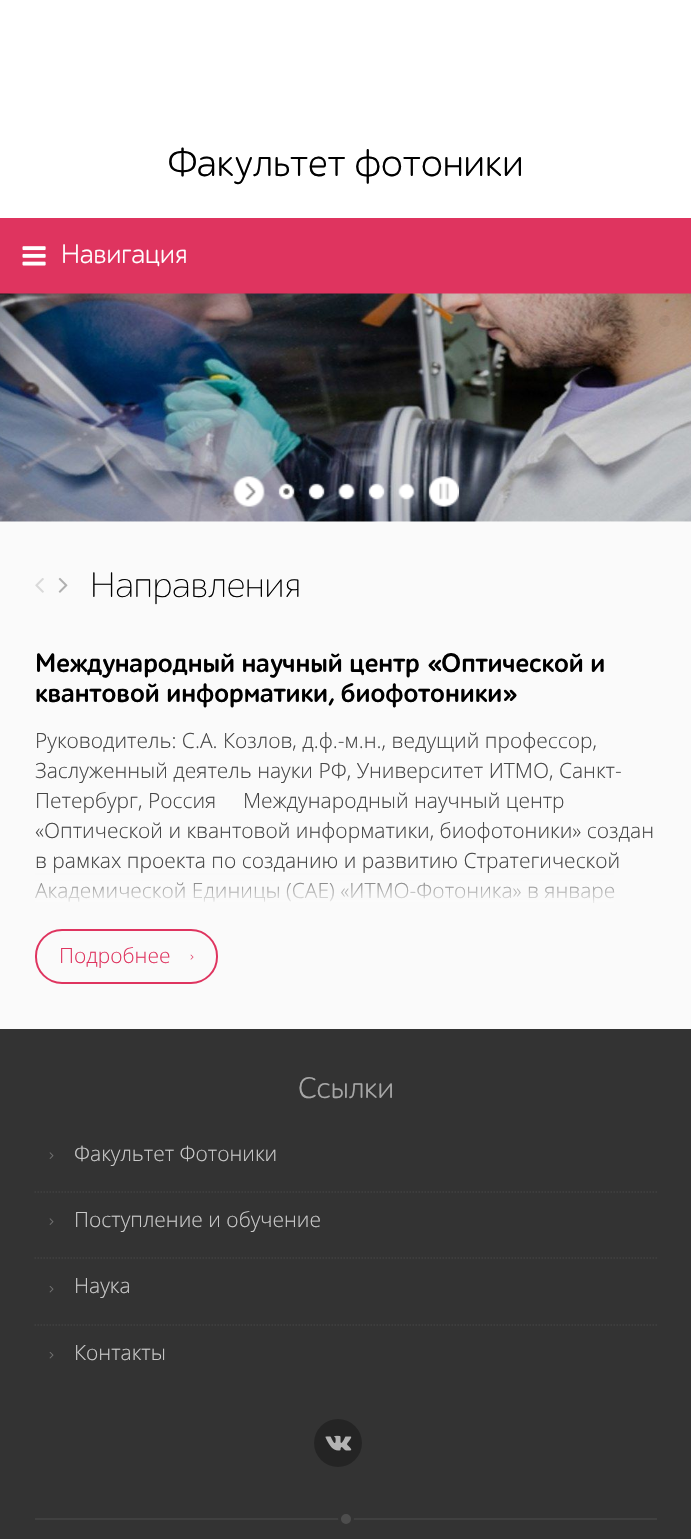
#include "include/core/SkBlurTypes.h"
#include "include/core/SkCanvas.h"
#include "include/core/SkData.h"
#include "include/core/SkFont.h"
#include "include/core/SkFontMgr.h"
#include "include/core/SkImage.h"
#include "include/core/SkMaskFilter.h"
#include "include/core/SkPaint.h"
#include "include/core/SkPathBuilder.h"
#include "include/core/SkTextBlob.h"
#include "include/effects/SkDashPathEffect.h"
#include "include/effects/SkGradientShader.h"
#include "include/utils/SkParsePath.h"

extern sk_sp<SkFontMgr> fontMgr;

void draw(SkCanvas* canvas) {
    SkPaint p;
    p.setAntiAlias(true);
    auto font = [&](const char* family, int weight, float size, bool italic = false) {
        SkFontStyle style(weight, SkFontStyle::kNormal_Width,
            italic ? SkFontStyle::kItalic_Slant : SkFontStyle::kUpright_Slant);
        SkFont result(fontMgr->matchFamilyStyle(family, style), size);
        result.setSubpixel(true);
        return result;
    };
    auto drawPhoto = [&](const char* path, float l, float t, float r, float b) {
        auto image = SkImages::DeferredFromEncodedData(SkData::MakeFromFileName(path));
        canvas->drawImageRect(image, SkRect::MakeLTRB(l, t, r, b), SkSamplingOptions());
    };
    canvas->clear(0xFFFFFFFF);
    auto font1 = font("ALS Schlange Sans", 400, 39);
    p.setColor(0xFF000000);
    canvas->drawString("Факультет фотоники", 168, 176, font1, p);
    p.setColor(0xFFDF345F);
    canvas->drawRect(SkRect::MakeLTRB(0, 218, 691, 294), p);
    drawPhoto("media/1.png", 22, 246, 46, 266);
    auto font2 = font("ALS Schlange Sans", 400, 27);
    p.setColor(0xFFFFFFFF);
    canvas->drawString("Навигация", 61, 263, font2, p);
    drawPhoto("media/2.png", 0, 293, 691, 522);
    canvas->save();
    canvas->clipRect(SkRect::MakeLTRB(665, 309, 677, 333));
    p.setColor(0x14FFFFFF);
    canvas->drawPath(SkPathBuilder().moveTo(665.5f, 308.5f).lineTo(663.5f, 332.5f).cubicTo(648, 331, 649.5f, 307, 665.5f, 308.5f).close().detach(), p);
    canvas->restore();
    p.setColor(0x14444444);
    canvas->drawCircle(665, 321, 6, p);
    drawPhoto("media/3.png", 233, 476, 265, 507);
    drawPhoto("media/4.png", 278, 483, 295, 500);
    drawPhoto("media/5.png", 308, 483, 325, 500);
    drawPhoto("media/6.png", 338, 483, 355, 500);
    drawPhoto("media/7.png", 368, 483, 385, 500);
    drawPhoto("media/8.png", 398, 483, 415, 500);
    drawPhoto("media/9.png", 428, 476, 459, 507);
    p.setColor(0xFFFAFAFA);
    canvas->drawRect(SkRect::MakeLTRB(0, 522, 691, 1029), p);
    drawPhoto("media/10.png", 35, 578, 44, 593);
    drawPhoto("media/11.png", 58, 577, 68, 593);
    auto font3 = font("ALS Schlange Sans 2", 400, 36);
    p.setColor(0xFF000000);
    canvas->drawString("Направления", 90, 597, font3, p);
    auto font4 = font("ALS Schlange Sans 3", 400, 27);
    canvas->drawString("Международный научный центр «Оптической и", 35, 672, font4, p);
    canvas->drawString("квантовой информатики, биофотоники»", 35, 702, font4, p);
    auto font5 = font("Open Sans", 300, 21);
    p.setColor(0xFF464646);
    {
        const struct { const char* s; float x, y; } items[] = {
            {"Руководитель: С.А. Козлов, д.ф.-м.н., ведущий профессор,", 35, 748},
            {"Заслуженный деятель науки РФ, Университет ИТМО, Санкт-", 35, 778},
            {"Петербург, Россия", 35, 808},
            {"Международный научный центр", 243, 808},
            {"«Оптической и квантовой информатики, биофотоники» создан", 35, 838},
            {"в рамках проекта по созданию и развитию Стратегической", 35, 868},
            {"Академической Единицы (САЕ) «ИТМО-Фотоника» в январе", 35, 898},
        };
        for (auto [s, x, y] : items) {
            canvas->drawString(s, x, y, font5, p);
        }
    }
    {
        const SkColor colors[] = {0x00FAFAFA, 0xFFFAFAFA};
        const float stops[] = {0, 1};
        const SkPoint ends[] = {{346, 869}, {346, 906}};
        p.setShader(SkGradientShader::MakeLinear(ends, colors, stops, 2, SkTileMode::kClamp));
        p.setAlpha(255);
    }
    canvas->drawRect(SkRect::MakeLTRB(35, 870, 614, 904), p);
    p.setStyle(SkPaint::kStroke_Style);
    p.setStrokeWidth(2);
    p.setShader(nullptr);
    p.setColor(0xFFDF345F);
    canvas->drawRoundRect(SkRect::MakeLTRB(36, 930, 217, 983), 26, 26, p);
    p.setStyle(SkPaint::kFill_Style);
    canvas->drawString("Подробнее", 59, 963, font5, p);
    drawPhoto("media/12.png", 190, 954, 194, 960);
    p.setColor(0xFF333333);
    canvas->drawRect(SkRect::MakeLTRB(0, 1029, 691, 1539), p);
    auto font6 = font("ALS Schlange Sans", 400, 30);
    p.setColor(0xFFA7A7A7);
    canvas->drawString("Ссылки", 298, 1098, font6, p);
    drawPhoto("media/13.png", 49, 1152, 54, 1159);
    p.setColor(0xFFC9C9C9);
    canvas->drawString("Факультет Фотоники", 74, 1161, font5, p);
    p.setStyle(SkPaint::kStroke_Style);
    p.setStrokeWidth(1.5f);
    p.setColor(0xFF404040);
    p.setPathEffect(SkDashPathEffect::Make({{1.5f, 1.5f}}, 0));
    canvas->drawPath(SkPathBuilder().moveTo(34.5f, 1192).lineTo(657, 1192).detach(), p);
    p.setPathEffect(nullptr);
    drawPhoto("media/13.png", 49, 1218, 54, 1225);
    p.setStyle(SkPaint::kFill_Style);
    p.setColor(0xFFC9C9C9);
    canvas->drawString("Поступление и обучение", 74, 1227, font5, p);
    p.setStyle(SkPaint::kStroke_Style);
    p.setColor(0xFF404040);
    p.setPathEffect(SkDashPathEffect::Make({{1.5f, 1.5f}}, 0));
    canvas->drawPath(SkPathBuilder().moveTo(34.5f, 1258).lineTo(657, 1258).detach(), p);
    p.setPathEffect(nullptr);
    drawPhoto("media/14.png", 49, 1286, 54, 1293);
    p.setStyle(SkPaint::kFill_Style);
    p.setColor(0xFFC9C9C9);
    canvas->drawString("Наука", 74, 1293, font5, p);
    p.setStyle(SkPaint::kStroke_Style);
    p.setColor(0xFF404040);
    p.setPathEffect(SkDashPathEffect::Make({{1.5f, 1.5f}}, 0));
    canvas->drawPath(SkPathBuilder().moveTo(34.5f, 1325).lineTo(657, 1325).detach(), p);
    p.setPathEffect(nullptr);
    drawPhoto("media/14.png", 49, 1352, 54, 1359);
    p.setStyle(SkPaint::kFill_Style);
    p.setColor(0xFFC9C9C9);
    canvas->drawString("Контакты", 74, 1360, font5, p);
    p.setColor(0xFF242424);
    canvas->drawCircle(338, 1443, 24, p);
    drawPhoto("media/15.png", 325, 1435, 352, 1451);
    p.setColor(0xFF404040);
    canvas->drawRect(SkRect::MakeLTRB(35, 1518, 657, 1520), p);
    p.setColor(0xFF4D4D4D);
    canvas->drawCircle(346, 1519, 6.5f, p);
    p.setStyle(SkPaint::kStroke_Style);
    p.setStrokeWidth(3);
    p.setColor(0xFF333333);
    canvas->drawCircle(346, 1519, 6.5f, p);
}
